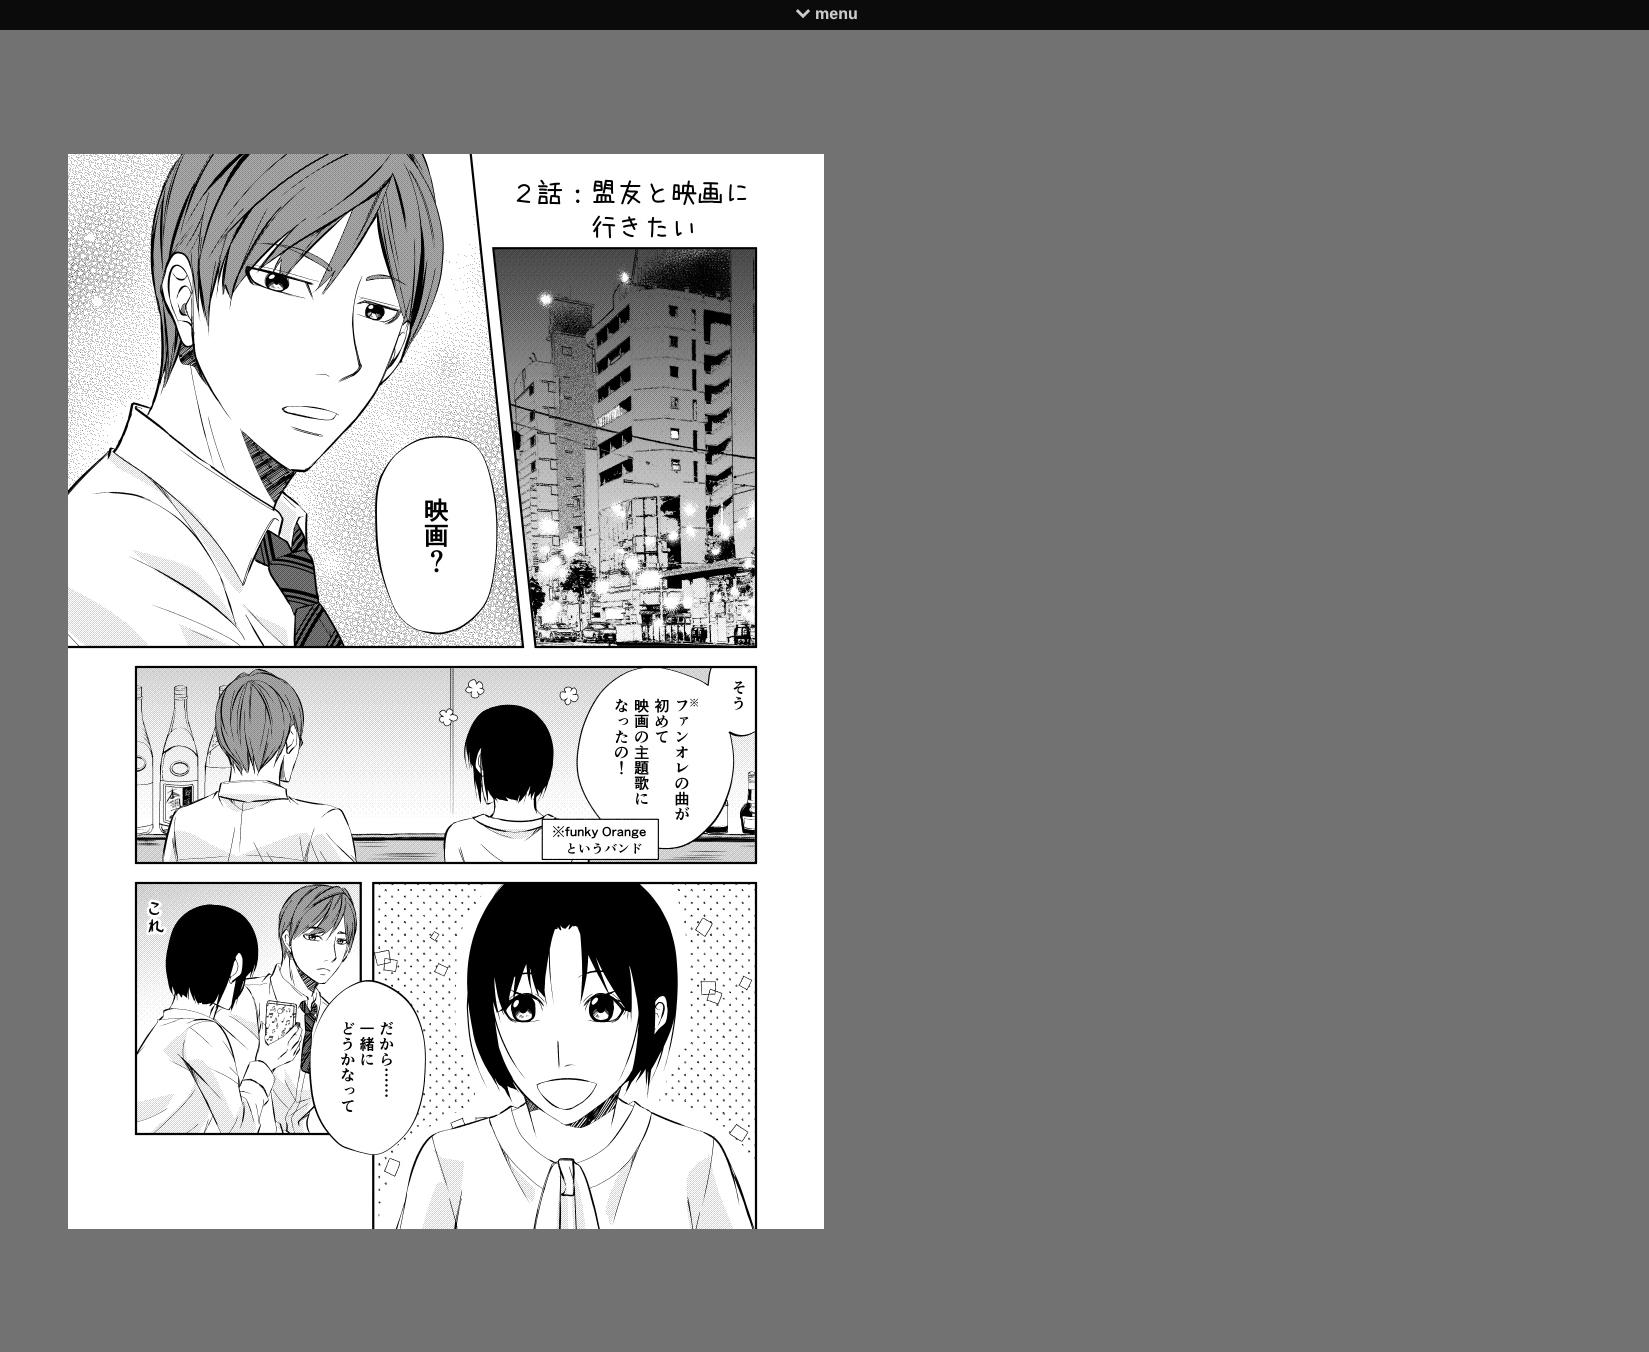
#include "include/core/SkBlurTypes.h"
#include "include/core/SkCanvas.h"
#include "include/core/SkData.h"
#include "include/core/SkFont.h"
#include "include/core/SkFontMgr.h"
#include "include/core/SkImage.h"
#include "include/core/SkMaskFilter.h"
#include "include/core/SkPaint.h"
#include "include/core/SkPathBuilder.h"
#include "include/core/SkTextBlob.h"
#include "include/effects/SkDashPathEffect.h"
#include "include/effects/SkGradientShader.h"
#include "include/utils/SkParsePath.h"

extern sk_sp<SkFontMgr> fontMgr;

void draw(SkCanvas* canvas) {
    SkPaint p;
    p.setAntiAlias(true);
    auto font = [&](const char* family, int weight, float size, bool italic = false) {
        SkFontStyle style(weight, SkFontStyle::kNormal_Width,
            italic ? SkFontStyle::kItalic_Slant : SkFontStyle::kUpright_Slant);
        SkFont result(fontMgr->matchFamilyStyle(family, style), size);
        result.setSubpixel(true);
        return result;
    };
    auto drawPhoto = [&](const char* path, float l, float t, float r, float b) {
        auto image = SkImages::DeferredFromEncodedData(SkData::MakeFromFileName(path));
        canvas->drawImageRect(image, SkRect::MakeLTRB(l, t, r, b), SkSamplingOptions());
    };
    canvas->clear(0xFF727272);
    p.setColor(0xFF0B0B0B);
    canvas->drawRect(SkRect::MakeLTRB(0, 0, 1649, 30), p);
    drawPhoto("media/1.png", 795, 9, 811, 19);
    auto font1 = font("Liberation Sans", 700, 16);
    p.setColor(0xFFCCCCCC);
    canvas->drawString("menu", 815, 19, font1, p);
    drawPhoto("media/2.png", 68, 154, 824, 1229);
}
